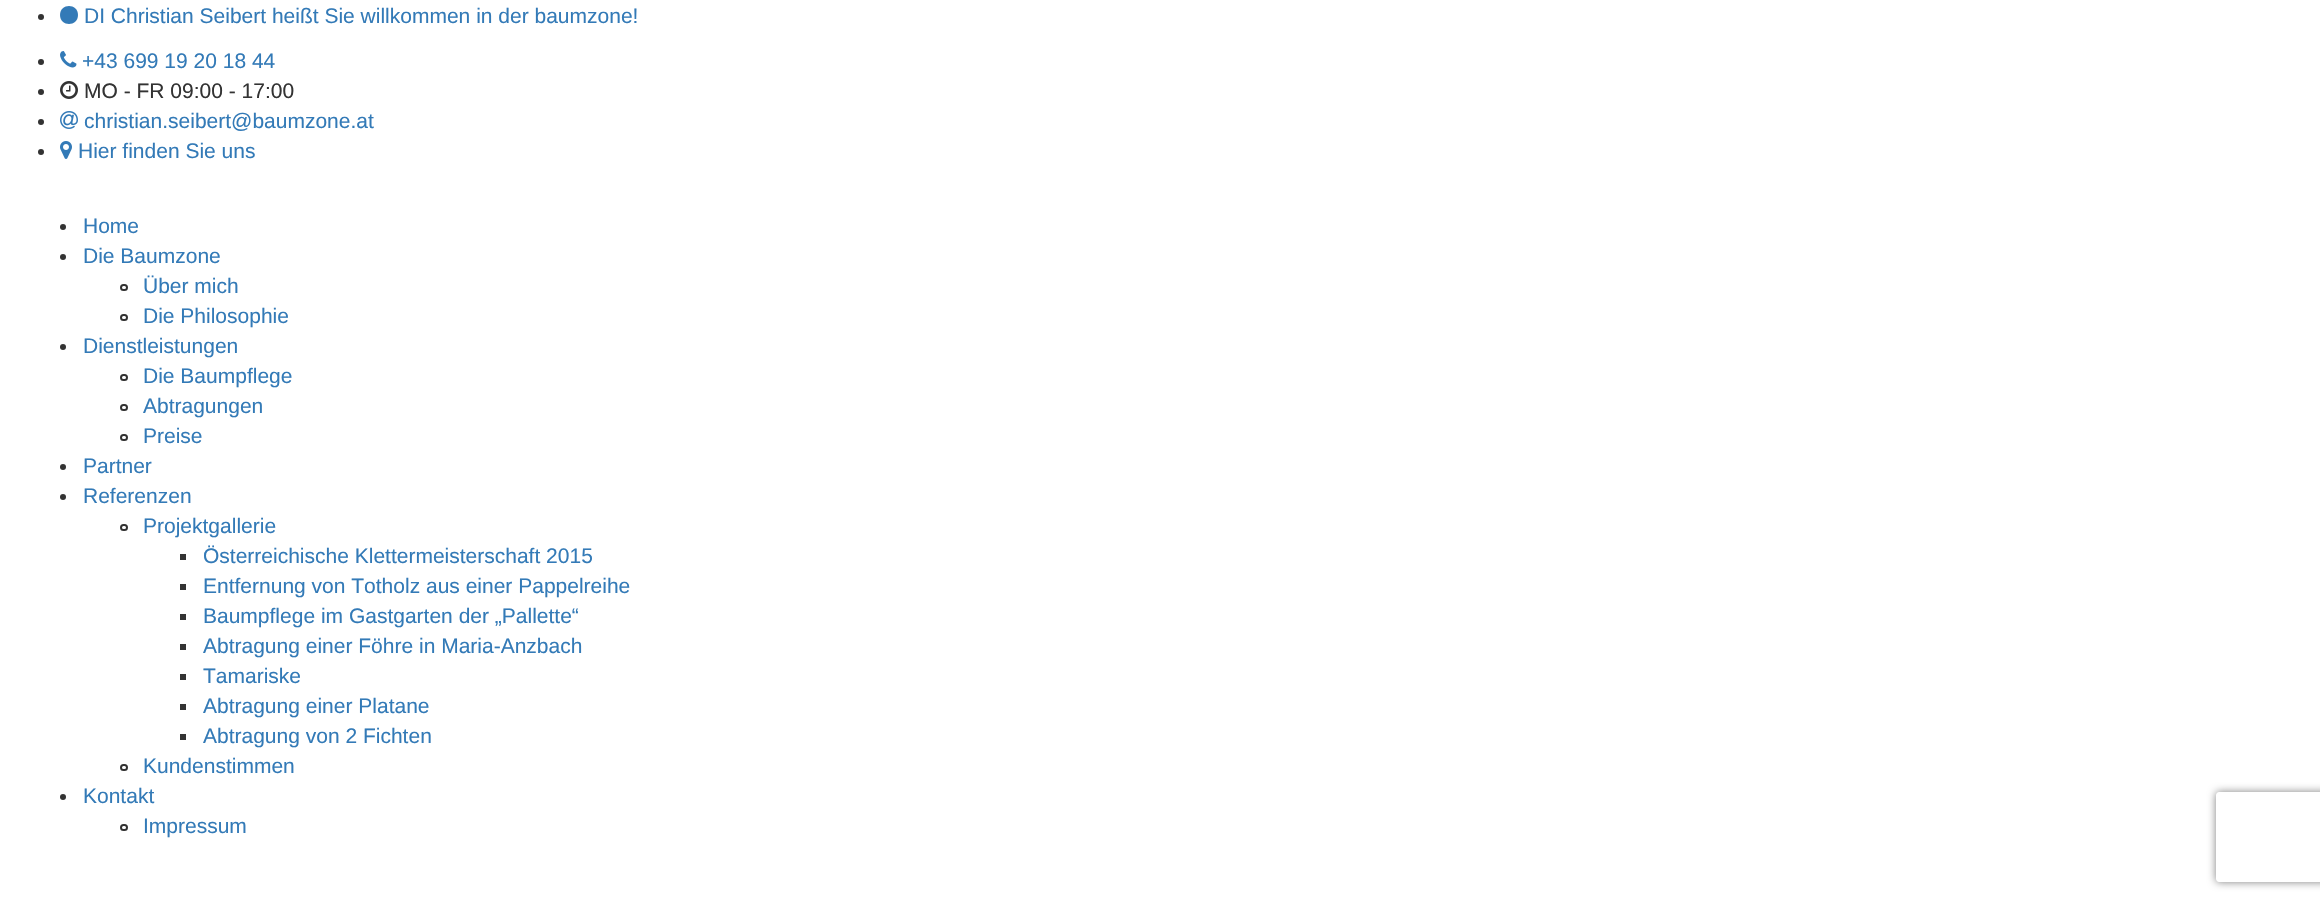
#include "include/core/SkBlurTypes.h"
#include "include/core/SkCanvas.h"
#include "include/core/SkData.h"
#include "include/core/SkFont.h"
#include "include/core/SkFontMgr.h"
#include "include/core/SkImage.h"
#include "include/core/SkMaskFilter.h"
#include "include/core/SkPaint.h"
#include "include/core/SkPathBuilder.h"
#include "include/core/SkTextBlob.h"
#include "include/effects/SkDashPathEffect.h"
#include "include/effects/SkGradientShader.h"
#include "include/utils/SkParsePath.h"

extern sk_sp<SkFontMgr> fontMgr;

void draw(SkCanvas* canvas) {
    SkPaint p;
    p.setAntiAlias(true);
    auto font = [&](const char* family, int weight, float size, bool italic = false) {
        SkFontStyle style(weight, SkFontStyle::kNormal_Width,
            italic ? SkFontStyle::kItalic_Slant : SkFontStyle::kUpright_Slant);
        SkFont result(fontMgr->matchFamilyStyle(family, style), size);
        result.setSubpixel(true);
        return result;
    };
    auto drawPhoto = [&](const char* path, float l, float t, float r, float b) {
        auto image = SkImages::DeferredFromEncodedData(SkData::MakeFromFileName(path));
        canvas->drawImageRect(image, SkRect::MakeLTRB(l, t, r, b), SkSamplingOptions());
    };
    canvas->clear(0xFFFFFFFF);
    p.setColor(0xFF333333);
    canvas->drawCircle(41, 17, 3, p);
    p.setColor(0xFF337AB7);
    canvas->drawPath(SkPathBuilder().moveTo(78, 15).cubicTo(78, 3, 60, 3, 60, 15).cubicTo(60, 27, 78, 27, 78, 15).close().detach(), p);
    auto font1 = font("Liberation Sans", 400, 21);
    canvas->drawString("DI Christian Seibert heißt Sie willkommen in der baumzone!", 84, 23, font1, p);
    p.setColor(0xFF333333);
    canvas->drawCircle(41, 62, 3, p);
    drawPhoto("media/1.png", 60, 51, 77, 68);
    p.setColor(0xFF337AB7);
    canvas->drawString("+43 699 19 20 18 44", 82, 68, font1, p);
    p.setColor(0xFF333333);
    canvas->drawCircle(41, 92, 3, p);
    drawPhoto("media/2.png", 60, 81, 78, 99);
    canvas->drawString("MO - FR 09:00 - 17:00", 84, 98, font1, p);
    canvas->drawCircle(41, 122, 3, p);
    drawPhoto("media/3.png", 60, 111, 78, 129);
    p.setColor(0xFF337AB7);
    canvas->drawString("christian.seibert@baumzone.at", 84, 128, font1, p);
    p.setColor(0xFF333333);
    canvas->drawCircle(41, 152, 3, p);
    drawPhoto("media/4.png", 60, 141, 72, 159);
    p.setColor(0xFF337AB7);
    canvas->drawString("Hier finden Sie uns", 78, 158, font1, p);
    p.setColor(0xFF333333);
    canvas->drawCircle(63, 227, 3, p);
    p.setColor(0xFF337AB7);
    canvas->drawString("Home", 83, 233, font1, p);
    p.setColor(0xFF333333);
    canvas->drawCircle(63, 257, 3, p);
    p.setColor(0xFF337AB7);
    canvas->drawString("Die Baumzone", 83, 263, font1, p);
    p.setStyle(SkPaint::kStroke_Style);
    p.setStrokeWidth(2);
    p.setColor(0xFF333333);
    canvas->drawRoundRect(SkRect::MakeLTRB(121, 285, 127, 290), 2.5f, 2.5f, p);
    p.setStyle(SkPaint::kFill_Style);
    p.setColor(0xFF337AB7);
    canvas->drawString("Über mich", 143, 293, font1, p);
    p.setStyle(SkPaint::kStroke_Style);
    p.setColor(0xFF333333);
    canvas->drawRoundRect(SkRect::MakeLTRB(121, 315, 127, 320), 2.5f, 2.5f, p);
    p.setStyle(SkPaint::kFill_Style);
    p.setColor(0xFF337AB7);
    canvas->drawString("Die Philosophie", 143, 323, font1, p);
    p.setColor(0xFF333333);
    canvas->drawCircle(63, 347, 3, p);
    p.setColor(0xFF337AB7);
    canvas->drawString("Dienstleistungen", 83, 353, font1, p);
    p.setStyle(SkPaint::kStroke_Style);
    p.setColor(0xFF333333);
    canvas->drawRoundRect(SkRect::MakeLTRB(121, 375, 127, 380), 2.5f, 2.5f, p);
    p.setStyle(SkPaint::kFill_Style);
    p.setColor(0xFF337AB7);
    canvas->drawString("Die Baumpflege", 143, 383, font1, p);
    p.setStyle(SkPaint::kStroke_Style);
    p.setColor(0xFF333333);
    canvas->drawRoundRect(SkRect::MakeLTRB(121, 405, 127, 410), 2.5f, 2.5f, p);
    p.setStyle(SkPaint::kFill_Style);
    p.setColor(0xFF337AB7);
    canvas->drawString("Abtragungen", 143, 413, font1, p);
    p.setStyle(SkPaint::kStroke_Style);
    p.setColor(0xFF333333);
    canvas->drawRoundRect(SkRect::MakeLTRB(121, 435, 127, 440), 2.5f, 2.5f, p);
    p.setStyle(SkPaint::kFill_Style);
    p.setColor(0xFF337AB7);
    canvas->drawString("Preise", 143, 443, font1, p);
    p.setColor(0xFF333333);
    canvas->drawCircle(63, 467, 3, p);
    p.setColor(0xFF337AB7);
    canvas->drawString("Partner", 83, 473, font1, p);
    p.setColor(0xFF333333);
    canvas->drawCircle(63, 497, 3, p);
    p.setColor(0xFF337AB7);
    canvas->drawString("Referenzen", 83, 503, font1, p);
    p.setStyle(SkPaint::kStroke_Style);
    p.setColor(0xFF333333);
    canvas->drawRoundRect(SkRect::MakeLTRB(121, 525, 127, 530), 2.5f, 2.5f, p);
    p.setStyle(SkPaint::kFill_Style);
    p.setColor(0xFF337AB7);
    canvas->drawString("Projektgallerie", 143, 533, font1, p);
    p.setColor(0xFF333333);
    canvas->drawRect(SkRect::MakeLTRB(180, 554, 186, 560), p);
    p.setColor(0xFF337AB7);
    canvas->drawString("Österreichische Klettermeisterschaft 2015", 203, 563, font1, p);
    p.setColor(0xFF333333);
    canvas->drawRect(SkRect::MakeLTRB(180, 584, 186, 590), p);
    p.setColor(0xFF337AB7);
    canvas->drawString("Entfernung von Totholz aus einer Pappelreihe", 203, 593, font1, p);
    p.setColor(0xFF333333);
    canvas->drawRect(SkRect::MakeLTRB(180, 614, 186, 620), p);
    p.setColor(0xFF337AB7);
    canvas->drawString("Baumpflege im Gastgarten der „Pallette“", 203, 623, font1, p);
    p.setColor(0xFF333333);
    canvas->drawRect(SkRect::MakeLTRB(180, 644, 186, 650), p);
    p.setColor(0xFF337AB7);
    canvas->drawString("Abtragung einer Föhre in Maria-Anzbach", 203, 653, font1, p);
    p.setColor(0xFF333333);
    canvas->drawRect(SkRect::MakeLTRB(180, 674, 186, 680), p);
    p.setColor(0xFF337AB7);
    canvas->drawString("Tamariske", 203, 683, font1, p);
    p.setColor(0xFF333333);
    canvas->drawRect(SkRect::MakeLTRB(180, 704, 186, 710), p);
    p.setColor(0xFF337AB7);
    canvas->drawString("Abtragung einer Platane", 203, 713, font1, p);
    p.setColor(0xFF333333);
    canvas->drawRect(SkRect::MakeLTRB(180, 734, 186, 740), p);
    p.setColor(0xFF337AB7);
    canvas->drawString("Abtragung von 2 Fichten", 203, 743, font1, p);
    p.setStyle(SkPaint::kStroke_Style);
    p.setColor(0xFF333333);
    canvas->drawRoundRect(SkRect::MakeLTRB(121, 765, 127, 770), 2.5f, 2.5f, p);
    p.setStyle(SkPaint::kFill_Style);
    p.setColor(0xFF337AB7);
    canvas->drawString("Kundenstimmen", 143, 773, font1, p);
    p.setColor(0xFF333333);
    canvas->drawCircle(63, 797, 3, p);
    p.setColor(0xFF337AB7);
    canvas->drawString("Kontakt", 83, 803, font1, p);
    p.setStyle(SkPaint::kStroke_Style);
    p.setColor(0xFF333333);
    canvas->drawRoundRect(SkRect::MakeLTRB(121, 825, 127, 830), 2.5f, 2.5f, p);
    p.setStyle(SkPaint::kFill_Style);
    p.setColor(0xFF337AB7);
    canvas->drawString("Impressum", 143, 833, font1, p);
    canvas->save();
    canvas->clipPath(SkPathBuilder(SkPathFillType::kEvenOdd).moveTo(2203, 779).lineTo(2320, 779).lineTo(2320, 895).lineTo(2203, 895).close().moveTo(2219, 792).lineTo(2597, 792).cubicTo(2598.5f, 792, 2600, 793.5f, 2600, 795).lineTo(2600, 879).cubicTo(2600, 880.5f, 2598.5f, 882, 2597, 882).lineTo(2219, 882).cubicTo(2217.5f, 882, 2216, 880.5f, 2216, 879).lineTo(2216, 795).cubicTo(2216, 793.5f, 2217.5f, 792, 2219, 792).close().detach(), true);
    p.setColor(0xFF808080);
    p.setMaskFilter(SkMaskFilter::MakeBlur(kNormal_SkBlurStyle, 4));
    canvas->drawRoundRect(SkRect::MakeLTRB(2216, 792, 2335, 882), 3, 3, p);
    p.setMaskFilter(nullptr);
    canvas->restore();
}
